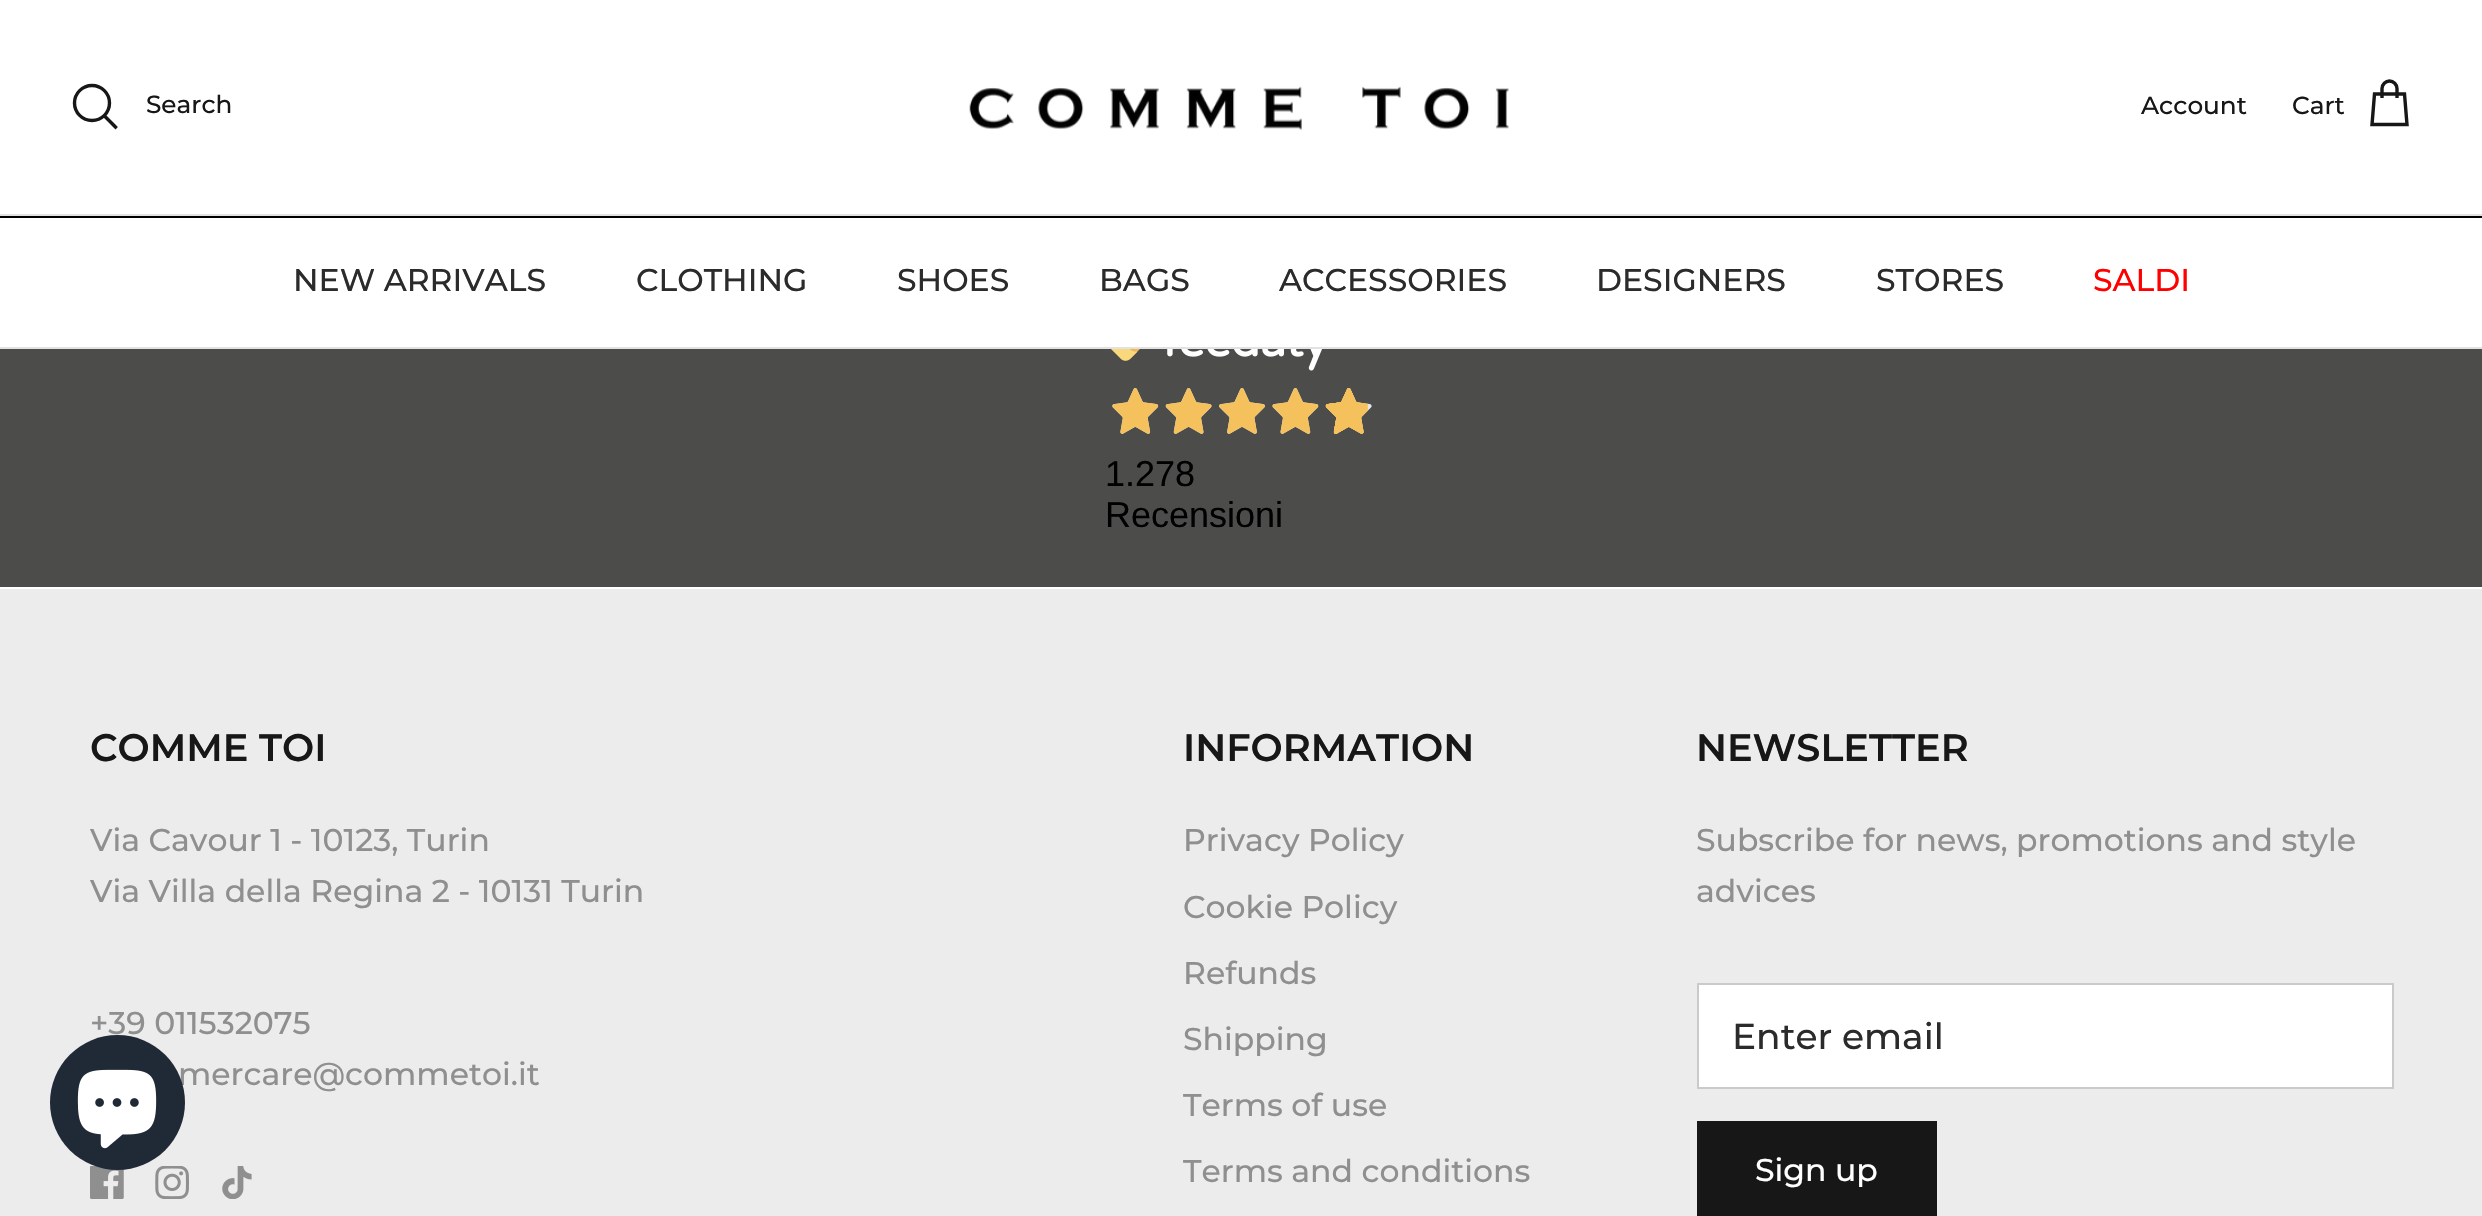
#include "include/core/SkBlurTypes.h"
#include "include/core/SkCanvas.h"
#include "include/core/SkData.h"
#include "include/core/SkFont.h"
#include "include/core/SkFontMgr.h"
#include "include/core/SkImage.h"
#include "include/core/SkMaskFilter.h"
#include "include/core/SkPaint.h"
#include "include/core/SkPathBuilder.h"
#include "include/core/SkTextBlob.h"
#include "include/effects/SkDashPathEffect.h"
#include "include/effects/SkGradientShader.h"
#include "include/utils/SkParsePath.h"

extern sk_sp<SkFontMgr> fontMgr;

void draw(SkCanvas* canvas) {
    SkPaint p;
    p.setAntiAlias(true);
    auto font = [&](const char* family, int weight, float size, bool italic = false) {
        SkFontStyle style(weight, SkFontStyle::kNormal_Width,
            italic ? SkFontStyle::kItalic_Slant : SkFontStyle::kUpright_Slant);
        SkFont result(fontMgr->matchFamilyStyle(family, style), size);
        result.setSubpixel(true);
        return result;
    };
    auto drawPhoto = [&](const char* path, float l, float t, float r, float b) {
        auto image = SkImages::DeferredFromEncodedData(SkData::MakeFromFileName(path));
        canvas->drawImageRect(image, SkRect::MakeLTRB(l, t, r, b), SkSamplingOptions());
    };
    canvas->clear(0xFFECECEC);
    p.setColor(0xFFFFFFFF);
    canvas->drawRect(SkRect::MakeLTRB(0, 0, 2482, 214), p);
    p.setColor(0xFFE2E2E2);
    canvas->drawRect(SkRect::MakeLTRB(0, 214, 2482, 216), p);
    p.setStyle(SkPaint::kStroke_Style);
    p.setStrokeWidth(3.4f);
    p.setColor(0xFF171717);
    canvas->drawCircle(92, 103, 17.5f, p);
    auto font1 = font("Montserrat", 500, 24.75f);
    p.setStyle(SkPaint::kFill_Style);
    canvas->drawString("Search", 146, 113, font1, p);
    p.setStyle(SkPaint::kStroke_Style);
    p.setStrokeCap(SkPaint::kSquare_Cap);
    canvas->drawPath(SkPathBuilder().moveTo(105.5f, 117).lineTo(115.5f, 127).detach(), p);
    drawPhoto("media/1.png", 969, 86, 1509, 130);
    p.setStyle(SkPaint::kFill_Style);
    canvas->drawString("Account", 2141, 114, font1, p);
    canvas->drawString("Cart", 2292, 114, font1, p);
    p.setStyle(SkPaint::kStroke_Style);
    p.setStrokeCap(SkPaint::kButt_Cap);
    canvas->drawPath(SkPathBuilder().moveTo(2397, 98).lineTo(2397, 88.5f).cubicTo(2397, 84.5f, 2393.5f, 81, 2389.5f, 81).cubicTo(2385.5f, 81, 2382, 84.5f, 2382, 88.5f).lineTo(2382, 98).moveTo(2374.5f, 94).lineTo(2404.5f, 94).lineTo(2407, 124.5f).lineTo(2372, 124.5f).close().detach(), p);
    p.setStyle(SkPaint::kFill_Style);
    {
        const struct { float l, t, r, b; SkColor color; } items[] = {
            {0, 216, 2482, 218, 0xFF000000},
            {0, 347, 2482, 349, 0xFFE2E2E2},
            {0, 218, 2482, 347, 0xFFFFFFFF},
        };
        for (auto [l, t, r, b, color] : items) {
            p.setColor(color);
            canvas->drawRect(SkRect::MakeLTRB(l, t, r, b), p);
        }
    }
    auto font2 = font("Montserrat", 500, 31.5f);
    p.setColor(0xFF2B2B2B);
    {
        const struct { const char* s; float x, y; } items[] = {
            {"NEW ARRIVALS", 293, 291},
            {"CLOTHING", 636, 291},
            {"SHOES", 897, 291},
            {"BAGS", 1099, 291},
            {"ACCESSORIES", 1279, 291},
            {"DESIGNERS", 1596, 291},
            {"STORES", 1876, 291},
        };
        for (auto [s, x, y] : items) {
            canvas->drawString(s, x, y, font2, p);
        }
    }
    p.setColor(0xFFFF0000);
    canvas->drawString("SALDI", 2093, 291, font2, p);
    p.setColor(0xFF4C4C4B);
    canvas->drawRect(SkRect::MakeLTRB(0, 349, 2482, 587), p);
    drawPhoto("media/2.png", 1111, 349, 1322, 371);
    drawPhoto("media/3.png", 1112, 388, 1372, 434);
    auto font3 = font("Liberation Sans", 400, 36);
    p.setColor(0xFF000000);
    canvas->drawString("1.278", 1105, 486, font3, p);
    canvas->drawString("Recensioni", 1105, 527, font3, p);
    p.setColor(0xFFFFFFFF);
    canvas->drawRect(SkRect::MakeLTRB(0, 587, 2482, 589), p);
    auto font4 = font("Montserrat", 600, 38.25f);
    p.setColor(0xFF171717);
    canvas->drawString("COMME TOI", 90, 761, font4, p);
    p.setColor(0xFF8F8F8F);
    {
        const struct { const char* s; float x, y; } items[] = {
            {"Via Cavour 1 - 10123, Turin", 90, 851},
            {"Via Villa della Regina 2 - 10131 Turin", 90, 902},
            {"+39 011532075", 90, 1034},
            {"mercare@commetoi.it", 178, 1085},
        };
        for (auto [s, x, y] : items) {
            canvas->drawString(s, x, y, font2, p);
        }
    }
    drawPhoto("media/4.png", 90, 1166, 124, 1199);
    drawPhoto("media/5.png", 155, 1166, 189, 1199);
    drawPhoto("media/6.png", 222, 1166, 252, 1199);
    p.setColor(0xFF171717);
    canvas->drawString("INFORMATION", 1183, 761, font4, p);
    p.setColor(0xFF8F8F8F);
    {
        const struct { const char* s; float x, y; } items[] = {
            {"Privacy Policy", 1183, 851},
            {"Cookie Policy", 1183, 918},
            {"Refunds", 1183, 984},
            {"Shipping", 1183, 1050},
            {"Terms of use", 1183, 1116},
            {"Terms and conditions", 1183, 1182},
        };
        for (auto [s, x, y] : items) {
            canvas->drawString(s, x, y, font2, p);
        }
    }
    p.setColor(0xFF171717);
    canvas->drawString("NEWSLETTER", 1696, 761, font4, p);
    p.setColor(0xFF8F8F8F);
    canvas->drawString("Subscribe for news, promotions and style", 1696, 851, font2, p);
    canvas->drawString("advices", 1696, 902, font2, p);
    p.setColor(0xFFFFFFFF);
    canvas->drawRect(SkRect::MakeLTRB(1698, 984, 2393, 1088), p);
    p.setStyle(SkPaint::kStroke_Style);
    p.setStrokeWidth(2);
    p.setColor(0xFFCACACA);
    canvas->drawRect(SkRect::MakeLTRB(1698, 984, 2393, 1088), p);
    auto font5 = font("Montserrat", 500, 36);
    p.setStyle(SkPaint::kFill_Style);
    p.setColor(0xFF2B2B2B);
    canvas->drawString("Enter email", 1732, 1049, font5, p);
    p.setColor(0xFF171717);
    canvas->drawRect(SkRect::MakeLTRB(1697, 1121, 1937, 1216), p);
    p.setColor(0xFFFFFFFF);
    canvas->drawString("Sign up", 1755, 1181, font2, p);
    p.setColor(0xFF202A36);
    canvas->drawCircle(117.5f, 1102.5f, 67.5f, p);
    drawPhoto("media/7.png", 77, 1069, 157, 1149);
}
